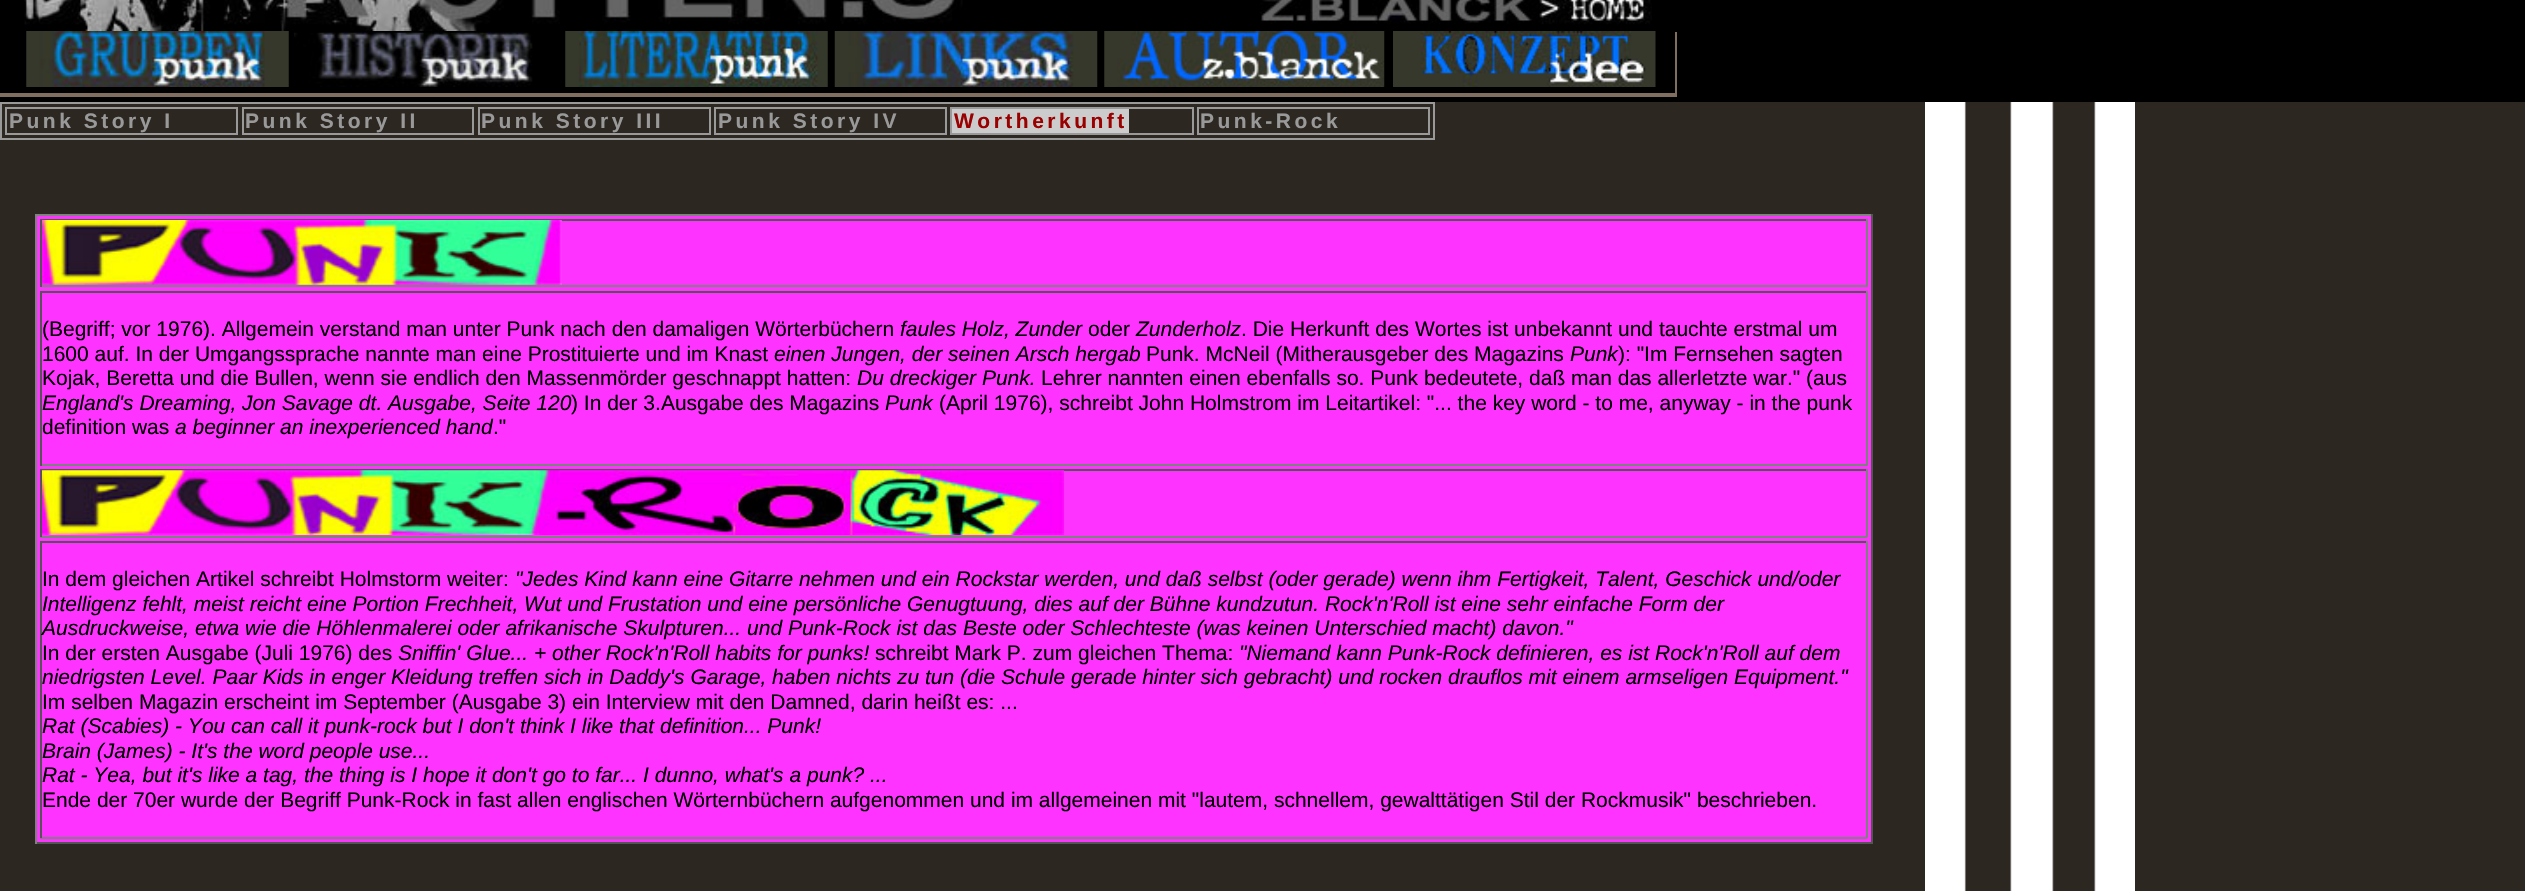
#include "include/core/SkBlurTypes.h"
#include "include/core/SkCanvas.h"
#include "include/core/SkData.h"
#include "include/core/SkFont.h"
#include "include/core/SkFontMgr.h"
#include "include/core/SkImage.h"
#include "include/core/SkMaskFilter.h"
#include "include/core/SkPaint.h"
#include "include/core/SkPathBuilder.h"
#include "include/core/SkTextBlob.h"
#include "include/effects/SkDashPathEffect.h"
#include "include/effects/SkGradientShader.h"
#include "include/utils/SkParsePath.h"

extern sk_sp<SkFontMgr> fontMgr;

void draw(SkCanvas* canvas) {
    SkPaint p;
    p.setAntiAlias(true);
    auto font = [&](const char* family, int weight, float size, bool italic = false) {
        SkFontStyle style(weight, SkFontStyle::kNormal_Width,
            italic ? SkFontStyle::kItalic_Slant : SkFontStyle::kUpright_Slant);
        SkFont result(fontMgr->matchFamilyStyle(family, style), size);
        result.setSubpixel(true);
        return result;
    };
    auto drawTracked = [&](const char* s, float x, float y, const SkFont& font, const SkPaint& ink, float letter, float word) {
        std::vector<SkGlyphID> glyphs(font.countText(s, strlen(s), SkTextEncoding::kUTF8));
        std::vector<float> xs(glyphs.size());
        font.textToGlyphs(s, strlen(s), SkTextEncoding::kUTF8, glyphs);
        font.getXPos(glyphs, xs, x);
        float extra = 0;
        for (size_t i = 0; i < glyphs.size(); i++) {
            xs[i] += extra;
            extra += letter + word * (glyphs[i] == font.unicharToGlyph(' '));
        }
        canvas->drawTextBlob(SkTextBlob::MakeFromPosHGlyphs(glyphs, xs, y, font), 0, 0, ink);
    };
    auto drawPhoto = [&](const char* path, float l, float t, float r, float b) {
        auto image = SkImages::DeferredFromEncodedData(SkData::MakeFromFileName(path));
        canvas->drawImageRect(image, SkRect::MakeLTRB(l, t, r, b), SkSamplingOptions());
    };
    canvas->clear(0xFF2D2722);
    drawPhoto("media/1.png", 1925, 102, 2135, 891);
    p.setColor(0xFF000000);
    canvas->drawRect(SkRect::MakeLTRB(0, 0, 2525, 102), p);
    drawPhoto("media/2.png", 24, 0, 1652, 31);
    p.setColor(0xFF806F60);
    canvas->drawRect(SkRect::MakeLTRB(1675, 32, 1677, 96), p);
    canvas->drawRect(SkRect::MakeLTRB(0, 93, 1677, 97), p);
    drawPhoto("media/3.png", 26, 31, 289, 87);
    drawPhoto("media/4.png", 294, 32, 533, 87);
    drawPhoto("media/5.png", 565, 31, 828, 87);
    drawPhoto("media/6.png", 834, 31, 1098, 87);
    drawPhoto("media/7.png", 1104, 31, 1385, 87);
    drawPhoto("media/8.png", 1393, 31, 1656, 87);
    p.setStyle(SkPaint::kStroke_Style);
    p.setStrokeWidth(2);
    p.setColor(0xFF999999);
    canvas->drawRect(SkRect::MakeLTRB(1, 103, 1434, 139), p);
    canvas->drawRect(SkRect::MakeLTRB(6, 108, 237, 134), p);
    auto font1 = font("Liberation Sans", 700, 21);
    p.setStyle(SkPaint::kFill_Style);
    drawTracked("Punk Story I", 9, 128, font1, p, 3.5f, 0);
    p.setStyle(SkPaint::kStroke_Style);
    canvas->drawRect(SkRect::MakeLTRB(243, 108, 473, 134), p);
    p.setStyle(SkPaint::kFill_Style);
    drawTracked("Punk Story II", 245, 128, font1, p, 3.5f, 0);
    p.setStyle(SkPaint::kStroke_Style);
    canvas->drawRect(SkRect::MakeLTRB(479, 108, 710, 134), p);
    p.setStyle(SkPaint::kFill_Style);
    drawTracked("Punk Story III", 481, 128, font1, p, 3.5f, 0);
    p.setStyle(SkPaint::kStroke_Style);
    canvas->drawRect(SkRect::MakeLTRB(715, 108, 946, 134), p);
    p.setStyle(SkPaint::kFill_Style);
    drawTracked("Punk Story IV", 718, 128, font1, p, 3.5f, 0);
    p.setStyle(SkPaint::kStroke_Style);
    canvas->drawRect(SkRect::MakeLTRB(951, 108, 1193, 134), p);
    p.setStyle(SkPaint::kFill_Style);
    p.setColor(0xFFCCCCCC);
    canvas->drawRect(SkRect::MakeLTRB(952, 109, 1129, 133), p);
    p.setColor(0xFF990000);
    drawTracked("Wortherkunft", 954, 128, font1, p, 3.5f, 0);
    p.setStyle(SkPaint::kStroke_Style);
    p.setColor(0xFF999999);
    canvas->drawRect(SkRect::MakeLTRB(1198, 108, 1429, 134), p);
    p.setStyle(SkPaint::kFill_Style);
    drawTracked("Punk-Rock", 1200, 128, font1, p, 3.5f, 0);
    {
        const struct { float l, t, r, b; SkColor color; } items[] = {
            {37, 216, 1871, 842, 0xFFFF33FF},
            {35, 214, 1873, 216, 0xFF808080},
            {1871, 214, 1873, 844, 0xFF555555},
            {35, 842, 1873, 844, 0xFF555555},
            {35, 214, 37, 844, 0xFF808080},
            {40, 219, 1867, 221, 0xFF555555},
            {1866, 219, 1868, 287, 0xFF808080},
            {40, 285, 1867, 287, 0xFF808080},
            {40, 219, 42, 287, 0xFF555555},
        };
        for (auto [l, t, r, b, color] : items) {
            p.setColor(color);
            canvas->drawRect(SkRect::MakeLTRB(l, t, r, b), p);
        }
    }
    drawPhoto("media/9.png", 42, 220, 562, 285);
    {
        const struct { float l, t, r, b; SkColor color; } items[] = {
            {40, 291, 1867, 293, 0xFF555555},
            {1866, 291, 1868, 466, 0xFF808080},
            {40, 464, 1867, 466, 0xFF808080},
            {40, 291, 42, 466, 0xFF555555},
        };
        for (auto [l, t, r, b, color] : items) {
            p.setColor(color);
            canvas->drawRect(SkRect::MakeLTRB(l, t, r, b), p);
        }
    }
    auto font2 = font("Liberation Sans", 400, 21);
    p.setColor(0xFF000000);
    canvas->drawString("(Begriff; vor 1976). Allgemein verstand man unter Punk nach den damaligen Wörterbüchern", 42, 336, font2, p);
    auto font3 = font("Liberation Sans", 400, 21, true);
    canvas->drawString("faules Holz, Zunder", 900, 336, font3, p);
    canvas->drawString("oder", 1088, 336, font2, p);
    canvas->drawString("Zunderholz", 1136, 336, font3, p);
    canvas->drawString(". Die Herkunft des Wortes ist unbekannt und tauchte erstmal um", 1241, 336, font2, p);
    canvas->drawString("1600 auf. In der Umgangssprache nannte man eine Prostituierte und im Knast", 42, 361, font2, p);
    canvas->drawString("einen Jungen, der seinen Arsch hergab", 774, 361, font3, p);
    canvas->drawString("Punk. McNeil (Mitherausgeber des Magazins", 1146, 361, font2, p);
    canvas->drawString("Punk", 1570, 361, font3, p);
    canvas->drawString("): \"Im Fernsehen sagten", 1618, 361, font2, p);
    canvas->drawString("Kojak, Beretta und die Bullen, wenn sie endlich den Massenmörder geschnappt hatten:", 42, 385, font2, p);
    canvas->drawString("Du dreckiger Punk.", 857, 385, font3, p);
    canvas->drawString("Lehrer nannten einen ebenfalls so. Punk bedeutete, daß man das allerletzte war.\" (aus", 1041, 385, font2, p);
    canvas->drawString("England's Dreaming, Jon Savage dt. Ausgabe, Seite 120", 42, 410, font3, p);
    canvas->drawString(") In der 3.Ausgabe des Magazins", 571, 410, font2, p);
    canvas->drawString("Punk", 885, 410, font3, p);
    canvas->drawString("(April 1976), schreibt John Holmstrom im Leitartikel: \"... the key word - to me, anyway - in the punk", 939, 410, font2, p);
    canvas->drawString("definition was", 42, 434, font2, p);
    canvas->drawString("a beginner an inexperienced hand", 175, 434, font3, p);
    canvas->drawString(".\"", 493, 434, font2, p);
    {
        const struct { float l, t, r, b; SkColor color; } items[] = {
            {40, 469, 1867, 471, 0xFF555555},
            {1866, 469, 1868, 537, 0xFF808080},
            {40, 536, 1867, 538, 0xFF808080},
            {40, 469, 42, 537, 0xFF555555},
        };
        for (auto [l, t, r, b, color] : items) {
            p.setColor(color);
            canvas->drawRect(SkRect::MakeLTRB(l, t, r, b), p);
        }
    }
    drawPhoto("media/10.png", 42, 470, 1064, 535);
    {
        const struct { float l, t, r, b; SkColor color; } items[] = {
            {40, 541, 1867, 543, 0xFF555555},
            {1866, 541, 1868, 838, 0xFF808080},
            {40, 837, 1867, 839, 0xFF808080},
            {40, 541, 42, 838, 0xFF555555},
        };
        for (auto [l, t, r, b, color] : items) {
            p.setColor(color);
            canvas->drawRect(SkRect::MakeLTRB(l, t, r, b), p);
        }
    }
    p.setColor(0xFF000000);
    canvas->drawString("In dem gleichen Artikel schreibt Holmstorm weiter:", 42, 586, font2, p);
    {
        const struct { const char* s; float x, y; } items[] = {
            {"\"Jedes Kind kann eine Gitarre nehmen und ein Rockstar werden, und daß selbst (oder gerade) wenn ihm Fertigkeit, Talent, Geschick und/oder", 515, 586},
            {"Intelligenz fehlt, meist reicht eine Portion Frechheit, Wut und Frustation und eine persönliche Genugtuung, dies auf der Bühne kundzutun. Rock'n'Roll ist eine sehr einfache Form der", 42, 611},
            {"Ausdruckweise, etwa wie die Höhlenmalerei oder afrikanische Skulpturen... und Punk-Rock ist das Beste oder Schlechteste (was keinen Unterschied macht) davon.\"", 42, 635},
        };
        for (auto [s, x, y] : items) {
            canvas->drawString(s, x, y, font3, p);
        }
    }
    canvas->drawString("In der ersten Ausgabe (Juli 1976) des", 42, 660, font2, p);
    canvas->drawString("Sniffin' Glue... + other Rock'n'Roll habits for punks!", 398, 660, font3, p);
    canvas->drawString("schreibt Mark P. zum gleichen Thema:", 875, 660, font2, p);
    canvas->drawString("\"Niemand kann Punk-Rock definieren, es ist Rock'n'Roll auf dem", 1239, 660, font3, p);
    canvas->drawString("niedrigsten Level. Paar Kids in enger Kleidung treffen sich in Daddy's Garage, haben nichts zu tun (die Schule gerade hinter sich gebracht) und rocken drauflos mit einem armseligen Equipment.\"", 42, 684, font3, p);
    canvas->drawString("Im selben Magazin erscheint im September (Ausgabe 3) ein Interview mit den Damned, darin heißt es: ...", 42, 709, font2, p);
    {
        const struct { const char* s; float x, y; } items[] = {
            {"Rat (Scabies) - You can call it punk-rock but I don't think I like that definition... Punk!", 42, 733},
            {"Brain (James) - It's the word people use...", 42, 758},
            {"Rat - Yea, but it's like a tag, the thing is I hope it don't go to far... I dunno, what's a punk? ...", 42, 782},
        };
        for (auto [s, x, y] : items) {
            canvas->drawString(s, x, y, font3, p);
        }
    }
    canvas->drawString("Ende der 70er wurde der Begriff Punk-Rock in fast allen englischen Wörternbüchern aufgenommen und im allgemeinen mit \"lautem, schnellem, gewalttätigen Stil der Rockmusik\" beschrieben.", 42, 807, font2, p);
}
